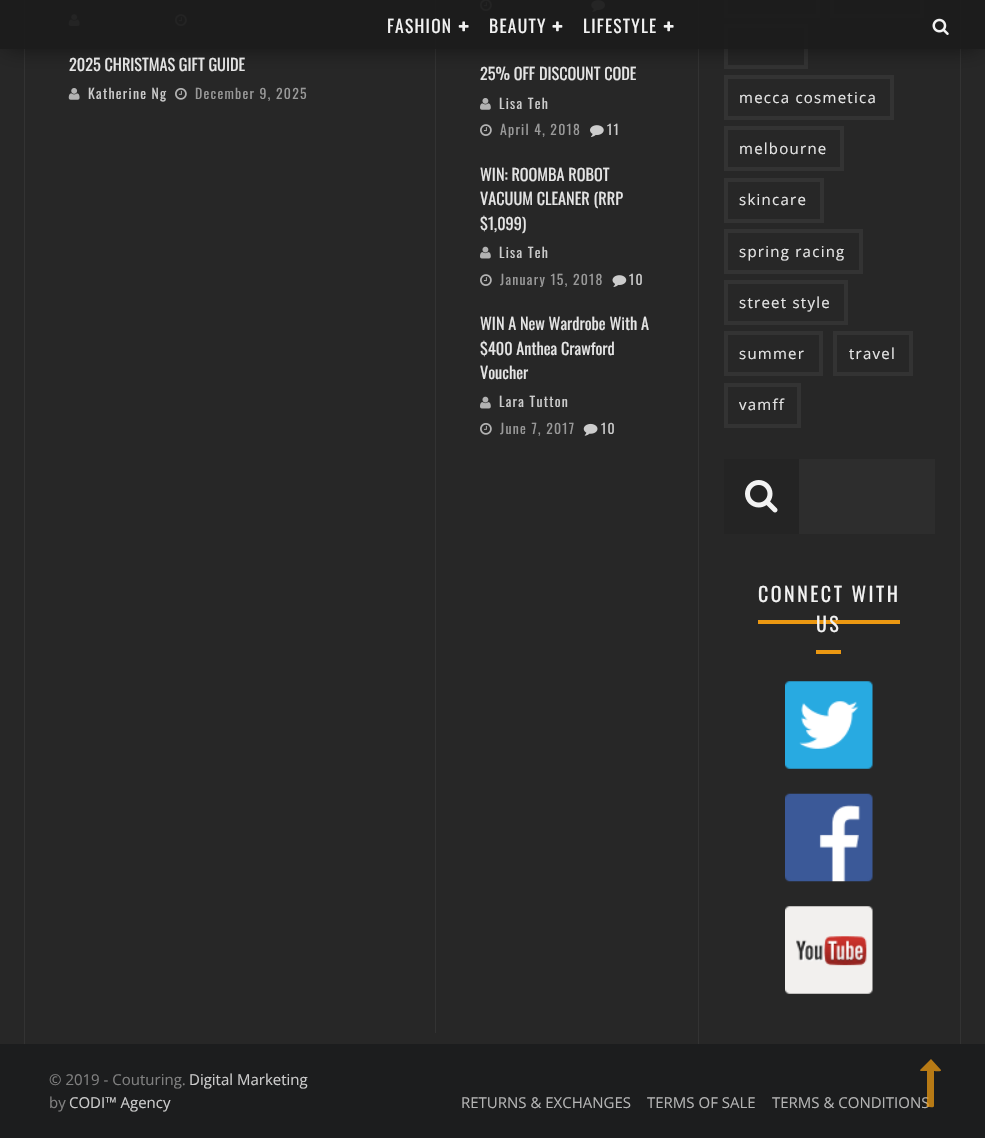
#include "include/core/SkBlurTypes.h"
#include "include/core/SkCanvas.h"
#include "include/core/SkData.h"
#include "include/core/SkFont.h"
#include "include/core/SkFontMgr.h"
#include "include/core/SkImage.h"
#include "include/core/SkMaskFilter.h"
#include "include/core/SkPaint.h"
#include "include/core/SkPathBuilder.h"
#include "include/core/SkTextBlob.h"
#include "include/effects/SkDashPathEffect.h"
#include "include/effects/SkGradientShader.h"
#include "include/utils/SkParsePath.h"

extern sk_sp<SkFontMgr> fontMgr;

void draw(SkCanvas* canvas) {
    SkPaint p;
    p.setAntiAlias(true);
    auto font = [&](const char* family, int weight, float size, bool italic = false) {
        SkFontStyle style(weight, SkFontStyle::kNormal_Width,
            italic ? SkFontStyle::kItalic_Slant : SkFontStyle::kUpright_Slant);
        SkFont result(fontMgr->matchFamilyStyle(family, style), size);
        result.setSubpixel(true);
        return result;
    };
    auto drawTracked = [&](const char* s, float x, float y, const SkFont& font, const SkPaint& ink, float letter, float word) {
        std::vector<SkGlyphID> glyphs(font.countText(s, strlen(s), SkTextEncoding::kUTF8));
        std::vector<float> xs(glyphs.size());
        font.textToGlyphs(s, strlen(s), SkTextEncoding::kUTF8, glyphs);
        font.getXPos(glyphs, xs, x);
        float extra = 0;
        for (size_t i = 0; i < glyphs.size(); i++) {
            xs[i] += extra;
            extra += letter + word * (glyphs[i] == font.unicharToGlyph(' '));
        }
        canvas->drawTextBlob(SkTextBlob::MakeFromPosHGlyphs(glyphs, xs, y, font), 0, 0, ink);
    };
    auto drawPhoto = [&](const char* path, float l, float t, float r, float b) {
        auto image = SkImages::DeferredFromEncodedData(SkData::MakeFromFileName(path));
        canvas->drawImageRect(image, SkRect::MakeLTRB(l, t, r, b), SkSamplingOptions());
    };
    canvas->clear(0xFF272727);
    {
        const struct { float l, t, r, b; SkColor color; } items[] = {
            {960, 0, 961, 1044, 0xFF333333},
            {24, 0, 25, 1044, 0xFF333333},
            {435, 0, 436, 1033, 0xFF333333},
        };
        for (auto [l, t, r, b, color] : items) {
            p.setColor(color);
            canvas->drawRect(SkRect::MakeLTRB(l, t, r, b), p);
        }
    }
    drawPhoto("media/4.png", 68, 14, 80, 26);
    drawPhoto("media/5.png", 175, 14, 187, 26);
    canvas->drawRect(SkRect::MakeLTRB(698, 0, 699, 1044), p);
    drawPhoto("media/8.png", 480, 0, 492, 11);
    drawPhoto("media/9.png", 591, 0, 605, 12);
    p.setStyle(SkPaint::kStroke_Style);
    p.setStrokeWidth(4);
    canvas->drawRect(SkRect::MakeLTRB(726, -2, 818, 16), p);
    canvas->drawRect(SkRect::MakeLTRB(832, -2, 922, 16), p);
    canvas->drawRect(SkRect::MakeLTRB(726, 26, 806, 67), p);
    canvas->drawRect(SkRect::MakeLTRB(726, 77, 892, 118), p);
    canvas->save();
    canvas->clipPath(SkPathBuilder(SkPathFillType::kEvenOdd).moveTo(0, 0).lineTo(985, 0).lineTo(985, 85).lineTo(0, 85).close().moveTo(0, 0).lineTo(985, 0).lineTo(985, 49).lineTo(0, 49).close().detach(), true);
    p.setStyle(SkPaint::kFill_Style);
    p.setColor(0x99000000);
    p.setMaskFilter(SkMaskFilter::MakeBlur(kNormal_SkBlurStyle, 12.5f));
    canvas->drawRect(SkRect::MakeLTRB(6, 10, 979, 46), p);
    p.setMaskFilter(nullptr);
    canvas->restore();
    p.setColor(0xF21B1B1B);
    canvas->drawRect(SkRect::MakeLTRB(0, 0, 985, 49), p);
    auto font1 = font("Oswald", 400, 17.5f);
    p.setColor(0xFFF2F2F2);
    drawTracked("FASHION", 387, 33, font1, p, 1.25f, 0);
    drawPhoto("media/1.png", 458, 21, 469, 32);
    drawTracked("BEAUTY", 489, 33, font1, p, 1.25f, 0);
    drawPhoto("media/2.png", 552, 21, 563, 32);
    drawTracked("LIFESTYLE", 583, 33, font1, p, 1.25f, 0);
    drawPhoto("media/1.png", 663, 21, 674, 32);
    drawPhoto("media/3.png", 932, 18, 949, 35);
    p.setColor(0xFF1C1D1E);
    canvas->drawRect(SkRect::MakeLTRB(0, 1044, 985, 1138), p);
    auto font2 = font("Open Sans", 400, 15);
    p.setColor(0xFFB3B3B3);
    canvas->drawString("TERMS & CONDITIONS", 772, 1108, font2, p);
    p.setColor(0xBFEB9812);
    canvas->drawPath(SkPathBuilder().moveTo(921, 1071).cubicTo(920, 1071, 920, 1070, 920, 1070).lineTo(931, 1059).lineTo(941, 1070).cubicTo(942, 1072, 935, 1071, 934, 1071).lineTo(934, 1106).cubicTo(934, 1108, 930, 1107, 930, 1107).cubicTo(925, 1107, 927, 1106, 927, 1100).lineTo(927, 1071).close().detach(), p);
    auto font3 = font("Oswald", 400, 16.25f);
    p.setColor(0xFFE5E5E5);
    canvas->drawString("2025 CHRISTMAS GIFT GUIDE", 69, 71, font3, p);
    drawPhoto("media/6.png", 68, 88, 80, 100);
    auto font4 = font("Oswald", 400, 13.75f);
    p.setColor(0xFFCCCCCC);
    drawTracked("Katherine Ng", 88, 99, font4, p, 1.25f, 0);
    drawPhoto("media/7.png", 175, 88, 187, 100);
    p.setColor(0xFF999999);
    drawTracked("December 9, 2025", 195, 99, font4, p, 1.25f, 0);
    p.setColor(0xFFE5E5E5);
    canvas->drawString("25% OFF DISCOUNT CODE", 480, 80, font3, p);
    drawPhoto("media/10.png", 480, 98, 491, 110);
    p.setColor(0xFFCCCCCC);
    drawTracked("Lisa Teh", 499, 109, font4, p, 1.25f, 0);
    drawPhoto("media/5.png", 480, 124, 492, 136);
    p.setColor(0xFF999999);
    drawTracked("April 4, 2018", 500, 135, font4, p, 1.25f, 0);
    drawPhoto("media/11.png", 590, 125, 604, 137);
    p.setColor(0xFFCCCCCC);
    drawTracked("11", 607, 135, font4, p, 1.25f, 0);
    p.setColor(0xFFE5E5E5);
    {
        const struct { const char* s; float x, y; } items[] = {
            {"WIN: ROOMBA ROBOT", 480, 181},
            {"VACUUM CLEANER (RRP", 480, 205},
            {"$1,099)", 480, 230},
        };
        for (auto [s, x, y] : items) {
            canvas->drawString(s, x, y, font3, p);
        }
    }
    drawPhoto("media/12.png", 480, 246, 491, 259);
    p.setColor(0xFFCCCCCC);
    drawTracked("Lisa Teh", 499, 258, font4, p, 1.25f, 0);
    drawPhoto("media/5.png", 480, 274, 492, 286);
    p.setColor(0xFF999999);
    drawTracked("January 15, 2018", 500, 285, font4, p, 1.25f, 0);
    drawPhoto("media/13.png", 612, 275, 627, 287);
    p.setColor(0xFFCCCCCC);
    drawTracked("10", 629, 285, font4, p, 1.25f, 0);
    p.setColor(0xFFE5E5E5);
    {
        const struct { const char* s; float x, y; } items[] = {
            {"WIN A New Wardrobe With A", 480, 330},
            {"$400 Anthea Crawford", 480, 355},
            {"Voucher", 480, 379},
        };
        for (auto [s, x, y] : items) {
            canvas->drawString(s, x, y, font3, p);
        }
    }
    drawPhoto("media/12.png", 480, 396, 491, 409);
    p.setColor(0xFFCCCCCC);
    drawTracked("Lara Tutton", 499, 407, font4, p, 1.25f, 0);
    drawPhoto("media/7.png", 480, 423, 492, 435);
    p.setColor(0xFF999999);
    drawTracked("June 7, 2017", 500, 434, font4, p, 1.25f, 0);
    drawPhoto("media/14.png", 583, 423, 598, 436);
    p.setColor(0xFFCCCCCC);
    drawTracked("10", 601, 434, font4, p, 1.25f, 0);
    p.setColor(0xFFE5E5E5);
    drawTracked("mecca cosmetica", 739, 103, font2, p, 1.25f, 0);
    p.setStyle(SkPaint::kStroke_Style);
    p.setColor(0xFF333333);
    canvas->drawRect(SkRect::MakeLTRB(726, 128, 842, 169), p);
    p.setStyle(SkPaint::kFill_Style);
    p.setColor(0xFFE5E5E5);
    drawTracked("melbourne", 739, 154, font2, p, 1.25f, 0);
    p.setStyle(SkPaint::kStroke_Style);
    p.setColor(0xFF333333);
    canvas->drawRect(SkRect::MakeLTRB(726, 180, 822, 221), p);
    p.setStyle(SkPaint::kFill_Style);
    p.setColor(0xFFE5E5E5);
    drawTracked("skincare", 739, 205, font2, p, 1.25f, 0);
    p.setStyle(SkPaint::kStroke_Style);
    p.setColor(0xFF333333);
    canvas->drawRect(SkRect::MakeLTRB(726, 231, 861, 272), p);
    p.setStyle(SkPaint::kFill_Style);
    p.setColor(0xFFE5E5E5);
    drawTracked("spring racing", 739, 257, font2, p, 1.25f, 0);
    p.setStyle(SkPaint::kStroke_Style);
    p.setColor(0xFF333333);
    canvas->drawRect(SkRect::MakeLTRB(726, 282, 846, 323), p);
    p.setStyle(SkPaint::kFill_Style);
    p.setColor(0xFFE5E5E5);
    drawTracked("street style", 739, 308, font2, p, 1.25f, 0);
    p.setStyle(SkPaint::kStroke_Style);
    p.setColor(0xFF333333);
    canvas->drawRect(SkRect::MakeLTRB(726, 333, 821, 374), p);
    p.setStyle(SkPaint::kFill_Style);
    p.setColor(0xFFE5E5E5);
    drawTracked("summer", 739, 359, font2, p, 1.25f, 0);
    p.setStyle(SkPaint::kStroke_Style);
    p.setColor(0xFF333333);
    canvas->drawRect(SkRect::MakeLTRB(835, 333, 911, 374), p);
    p.setStyle(SkPaint::kFill_Style);
    p.setColor(0xFFE5E5E5);
    drawTracked("travel", 849, 359, font2, p, 1.25f, 0);
    p.setStyle(SkPaint::kStroke_Style);
    p.setColor(0xFF333333);
    canvas->drawRect(SkRect::MakeLTRB(726, 385, 799, 426), p);
    p.setStyle(SkPaint::kFill_Style);
    p.setColor(0xFFE5E5E5);
    drawTracked("vamff", 739, 410, font2, p, 1.25f, 0);
    p.setColor(0xFF242424);
    canvas->drawRect(SkRect::MakeLTRB(724, 459, 799, 534), p);
    drawPhoto("media/15.png", 745, 480, 778, 513);
    p.setColor(0xFF2D2D2D);
    canvas->drawRect(SkRect::MakeLTRB(799, 459, 935, 534), p);
    auto font5 = font("Oswald", 400, 20);
    p.setColor(0xFFF2F2F2);
    drawTracked("CONNECT WITH", 758, 602, font5, p, 2.5f, 0);
    p.setColor(0xFFEB9812);
    canvas->drawRect(SkRect::MakeLTRB(758, 620, 900, 624), p);
    p.setColor(0xFFF2F2F2);
    drawTracked("US", 816, 632, font5, p, 2.5f, 0);
    p.setColor(0xFFEB9812);
    canvas->drawRect(SkRect::MakeLTRB(816, 650, 841, 654), p);
    drawPhoto("media/16.png", 785, 681, 873, 769);
    drawPhoto("media/17.png", 785, 793, 873, 882);
    drawPhoto("media/18.png", 785, 906, 873, 994);
    p.setColor(0xFF808080);
    canvas->drawString("© 2019 - Couturing.", 49, 1085, font2, p);
    p.setColor(0xFFCCCCCC);
    canvas->drawString("Digital Marketing", 189, 1085, font2, p);
    p.setColor(0xFF808080);
    canvas->drawString("by", 49, 1108, font2, p);
    p.setColor(0xFFCCCCCC);
    canvas->drawString("CODI™ Agency", 69, 1108, font2, p);
    p.setColor(0xFFB3B3B3);
    canvas->drawString("RETURNS & EXCHANGES", 461, 1108, font2, p);
    canvas->drawString("TERMS OF SALE", 647, 1108, font2, p);
}
